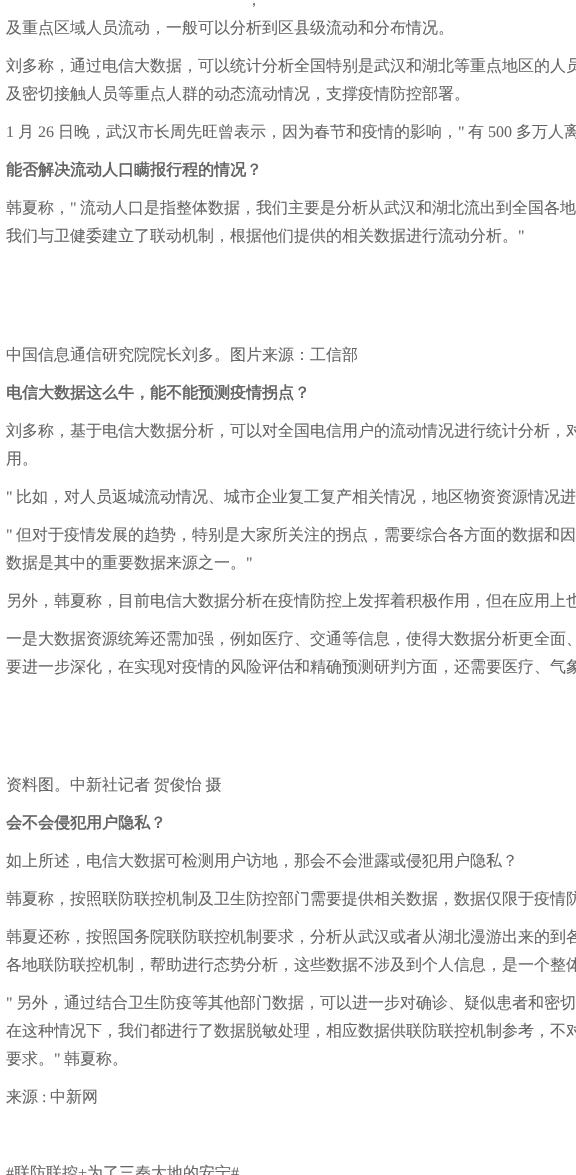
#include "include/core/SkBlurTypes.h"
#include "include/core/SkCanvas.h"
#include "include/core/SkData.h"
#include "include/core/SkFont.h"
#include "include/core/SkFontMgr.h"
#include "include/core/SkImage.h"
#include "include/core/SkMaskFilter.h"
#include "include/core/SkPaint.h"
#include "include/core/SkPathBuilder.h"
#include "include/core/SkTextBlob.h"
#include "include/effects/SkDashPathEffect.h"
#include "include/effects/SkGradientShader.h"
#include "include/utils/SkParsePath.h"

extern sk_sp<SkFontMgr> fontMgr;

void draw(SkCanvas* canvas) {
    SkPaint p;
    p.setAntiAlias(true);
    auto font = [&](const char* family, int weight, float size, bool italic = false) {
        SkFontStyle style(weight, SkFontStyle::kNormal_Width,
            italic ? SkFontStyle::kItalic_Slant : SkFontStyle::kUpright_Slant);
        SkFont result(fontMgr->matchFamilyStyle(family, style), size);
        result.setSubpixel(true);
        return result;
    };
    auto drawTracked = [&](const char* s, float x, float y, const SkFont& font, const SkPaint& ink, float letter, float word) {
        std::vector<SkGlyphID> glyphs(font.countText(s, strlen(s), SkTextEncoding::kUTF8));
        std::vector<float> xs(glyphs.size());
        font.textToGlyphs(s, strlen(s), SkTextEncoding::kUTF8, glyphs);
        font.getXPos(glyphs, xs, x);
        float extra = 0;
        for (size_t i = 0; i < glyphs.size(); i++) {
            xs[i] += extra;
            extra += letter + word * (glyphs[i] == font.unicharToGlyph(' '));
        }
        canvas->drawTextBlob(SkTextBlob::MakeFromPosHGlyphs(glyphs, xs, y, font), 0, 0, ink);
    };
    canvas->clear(0xFFFFFFFF);
    auto font1 = font("WenQuanYi Zen Hei", 500, 16);
    p.setColor(0xFF666666);
    {
        const struct { const char* s; float x, y; } items[] = {
            {"，", 246, 5},
            {"及重点区域人员流动，一般可以分析到区县级流动和分布情况。", 6, 33},
            {"刘多称，通过电信大数据，可以统计分析全国特别是武汉和湖北等重点地区的人员", 6, 71},
            {"及密切接触人员等重点人群的动态流动情况，支撑疫情防控部署。", 6, 99},
        };
        for (auto [s, x, y] : items) {
            canvas->drawString(s, x, y, font1, p);
        }
    }
    auto font2 = font("Liberation Serif", 400, 16);
    canvas->drawString("1", 6, 137, font2, p);
    canvas->drawString("月", 18, 137, font1, p);
    canvas->drawString("26", 38, 137, font2, p);
    canvas->drawString("日晚，武汉市长周先旺曾表示，因为春节和疫情的影响，", 58, 137, font1, p);
    canvas->drawString("\"", 458, 137, font2, p);
    canvas->drawString("有", 468, 137, font1, p);
    canvas->drawString("500", 488, 137, font2, p);
    canvas->drawString("多万人离", 516, 137, font1, p);
    auto font3 = font("WenQuanYi Zen Hei", 700, 16);
    canvas->drawString("能否解决流动人口瞒报行程的情况？", 6, 175, font3, p);
    canvas->drawString("韩夏称，", 6, 213, font1, p);
    canvas->drawString("\"", 70, 213, font2, p);
    canvas->drawString("流动人口是指整体数据，我们主要是分析从武汉和湖北流出到全国各地", 80, 213, font1, p);
    canvas->drawString("我们与卫健委建立了联动机制，根据他们提供的相关数据进行流动分析。", 6, 241, font1, p);
    canvas->drawString("\"", 518, 241, font2, p);
    canvas->drawString("中国信息通信研究院院长刘多。图片来源：工信部", 6, 360, font1, p);
    canvas->drawString("电信大数据这么牛，能不能预测疫情拐点？", 6, 398, font3, p);
    canvas->drawString("刘多称，基于电信大数据分析，可以对全国电信用户的流动情况进行统计分析，对", 6, 436, font1, p);
    canvas->drawString("用。", 6, 464, font1, p);
    canvas->drawString("\"", 6, 502, font2, p);
    canvas->drawString("比如，对人员返城流动情况、城市企业复工复产相关情况，地区物资资源情况进", 16, 502, font1, p);
    canvas->drawString("\"", 6, 540, font2, p);
    canvas->drawString("但对于疫情发展的趋势，特别是大家所关注的拐点，需要综合各方面的数据和因", 16, 540, font1, p);
    canvas->drawString("数据是其中的重要数据来源之一。", 6, 568, font1, p);
    canvas->drawString("\"", 246, 568, font2, p);
    {
        const struct { const char* s; float x, y; } items[] = {
            {"另外，韩夏称，目前电信大数据分析在疫情防控上发挥着积极作用，但在应用上也", 6, 606},
            {"一是大数据资源统筹还需加强，例如医疗、交通等信息，使得大数据分析更全面、", 6, 644},
            {"要进一步深化，在实现对疫情的风险评估和精确预测研判方面，还需要医疗、气象", 6, 672},
        };
        for (auto [s, x, y] : items) {
            canvas->drawString(s, x, y, font1, p);
        }
    }
    drawTracked("资料图。中新社记者 贺俊怡 摄", 6, 790, font1, p, 0, -1);
    canvas->drawString("会不会侵犯用户隐私？", 6, 828, font3, p);
    {
        const struct { const char* s; float x, y; } items[] = {
            {"如上所述，电信大数据可检测用户访地，那会不会泄露或侵犯用户隐私？", 6, 866},
            {"韩夏称，按照联防联控机制及卫生防控部门需要提供相关数据，数据仅限于疫情防", 6, 904},
            {"韩夏还称，按照国务院联防联控机制要求，分析从武汉或者从湖北漫游出来的到各", 6, 942},
            {"各地联防联控机制，帮助进行态势分析，这些数据不涉及到个人信息，是一个整体", 6, 970},
        };
        for (auto [s, x, y] : items) {
            canvas->drawString(s, x, y, font1, p);
        }
    }
    canvas->drawString("\"", 6, 1008, font2, p);
    {
        const struct { const char* s; float x, y; } items[] = {
            {"另外，通过结合卫生防疫等其他部门数据，可以进一步对确诊、疑似患者和密切", 16, 1008},
            {"在这种情况下，我们都进行了数据脱敏处理，相应数据供联防联控机制参考，不对", 6, 1036},
            {"要求。", 6, 1064},
        };
        for (auto [s, x, y] : items) {
            canvas->drawString(s, x, y, font1, p);
        }
    }
    canvas->drawString("\"", 54, 1064, font2, p);
    canvas->drawString("韩夏称。", 64, 1064, font1, p);
    canvas->drawString("来源", 6, 1102, font1, p);
    canvas->drawString(":", 42, 1102, font2, p);
    canvas->drawString("中新网", 50, 1102, font1, p);
    canvas->drawString("#", 6, 1178, font2, p);
    canvas->drawString("联防联控", 14, 1178, font1, p);
    canvas->drawString("+", 78, 1178, font2, p);
    canvas->drawString("为了三秦大地的安宁", 87, 1178, font1, p);
    canvas->drawString("#", 231, 1178, font2, p);
}
